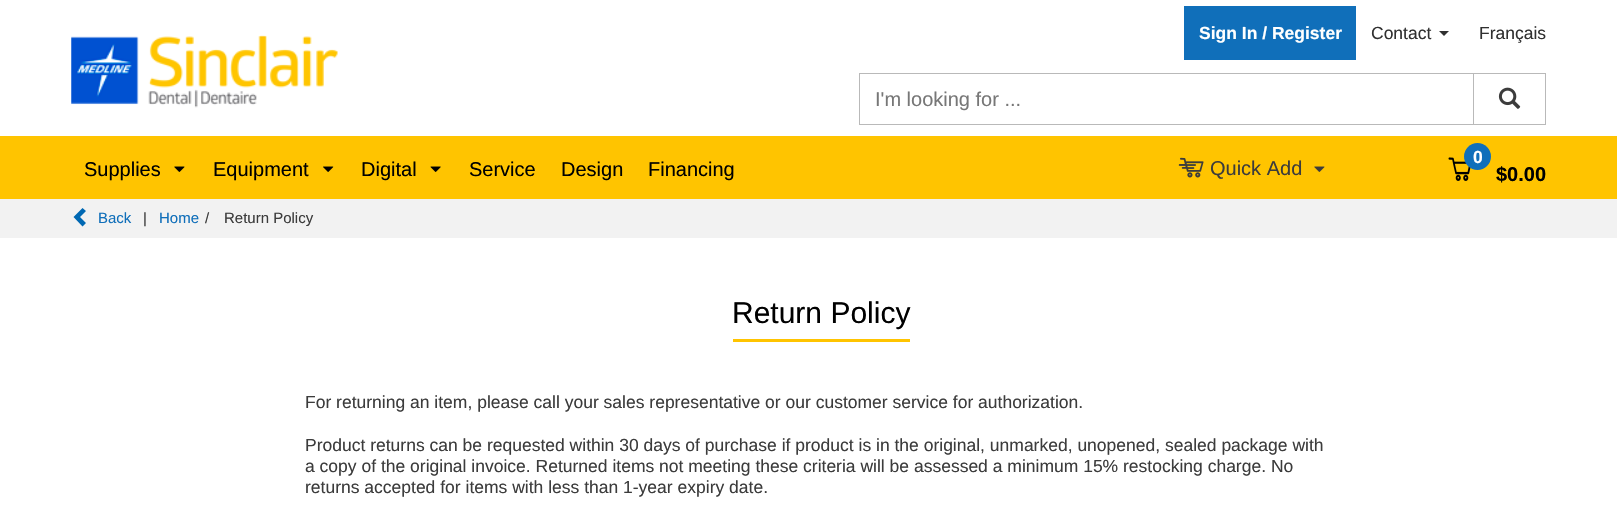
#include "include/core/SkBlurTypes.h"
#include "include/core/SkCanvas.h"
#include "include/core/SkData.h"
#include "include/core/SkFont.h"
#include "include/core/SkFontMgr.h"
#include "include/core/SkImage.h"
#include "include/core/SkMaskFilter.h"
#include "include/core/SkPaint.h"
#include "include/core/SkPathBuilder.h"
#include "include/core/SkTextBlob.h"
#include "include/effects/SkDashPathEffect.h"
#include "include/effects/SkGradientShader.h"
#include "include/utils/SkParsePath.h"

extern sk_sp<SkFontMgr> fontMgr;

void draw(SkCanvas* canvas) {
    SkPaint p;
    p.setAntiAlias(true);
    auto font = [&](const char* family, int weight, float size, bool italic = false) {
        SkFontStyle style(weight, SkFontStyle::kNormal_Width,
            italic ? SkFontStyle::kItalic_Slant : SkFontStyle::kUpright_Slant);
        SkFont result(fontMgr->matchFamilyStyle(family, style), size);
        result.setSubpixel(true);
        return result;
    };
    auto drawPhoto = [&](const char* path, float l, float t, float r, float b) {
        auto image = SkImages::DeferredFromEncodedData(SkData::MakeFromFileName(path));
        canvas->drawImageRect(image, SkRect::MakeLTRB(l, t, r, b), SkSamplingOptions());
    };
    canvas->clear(0xFFFFFFFF);
    drawPhoto("media/1.png", 71, 35, 338, 108);
    p.setColor(0xFF106FBA);
    canvas->drawRect(SkRect::MakeLTRB(1184, 6, 1356, 60), p);
    auto font1 = font("Liberation Sans", 700, 17.5f);
    p.setColor(0xFFFFFFFF);
    canvas->drawString("Sign In / Register", 1199, 39, font1, p);
    auto font2 = font("Liberation Sans", 400, 17.5f);
    p.setColor(0xFF303030);
    canvas->drawString("Contact", 1371, 39, font2, p);
    canvas->drawPath(SkPathBuilder().moveTo(1439, 31).lineTo(1449, 31).lineTo(1444, 36).close().detach(), p);
    canvas->drawString("Français", 1479, 39, font2, p);
    p.setStyle(SkPaint::kStroke_Style);
    p.setStrokeWidth(1);
    p.setColor(0xFFB9B9B9);
    canvas->drawRect(SkRect::MakeLTRB(859.5f, 73.5f, 1545.5f, 124.5f), p);
    auto font3 = font("Liberation Sans", 400, 20);
    p.setStyle(SkPaint::kFill_Style);
    p.setColor(0xFF777777);
    canvas->drawString("I'm looking for ...", 875, 106, font3, p);
    p.setColor(0xFFB9B9B9);
    canvas->drawRect(SkRect::MakeLTRB(1473, 74, 1474, 124), p);
    drawPhoto("media/2.png", 1498, 87, 1521, 109);
    p.setColor(0xFFFFC400);
    canvas->drawRect(SkRect::MakeLTRB(0, 136, 1617, 199), p);
    p.setColor(0xFF000000);
    canvas->drawString("Supplies", 84, 176, font3, p);
    drawPhoto("media/3.png", 174, 166, 185, 172);
    canvas->drawString("Equipment", 213, 176, font3, p);
    drawPhoto("media/4.png", 323, 166, 334, 172);
    canvas->drawString("Digital", 361, 176, font3, p);
    drawPhoto("media/5.png", 430, 166, 441, 172);
    {
        const struct { const char* s; float x, y; } items[] = {
            {"Service", 469, 176},
            {"Design", 561, 176},
            {"Financing", 648, 176},
        };
        for (auto [s, x, y] : items) {
            canvas->drawString(s, x, y, font3, p);
        }
    }
    drawPhoto("media/6.png", 1178, 157, 1204, 178);
    p.setColor(0xFF3C3C3C);
    canvas->drawString("Quick Add", 1210, 175, font3, p);
    drawPhoto("media/7.png", 1314, 166, 1325, 172);
    drawPhoto("media/8.png", 1448, 157, 1471, 181);
    p.setColor(0xFF106FBA);
    canvas->drawCircle(1477.5f, 156.5f, 13.5f, p);
    p.setColor(0xFFFFFFFF);
    canvas->drawString("0", 1473, 163, font1, p);
    auto font4 = font("Liberation Sans", 700, 20);
    p.setColor(0xFF000000);
    canvas->drawString("$0.00", 1496, 181, font4, p);
    p.setColor(0xFFF2F2F2);
    canvas->drawRect(SkRect::MakeLTRB(0, 199, 1617, 238), p);
    p.setColor(0xFF0068B3);
    canvas->drawPath(SkPathBuilder().moveTo(86, 211).lineTo(80, 217).lineTo(86, 223).lineTo(82.5f, 226.5f).lineTo(73.5f, 217).lineTo(82.5f, 208).close().detach(), p);
    auto font5 = font("Liberation Sans", 400, 15);
    p.setColor(0xFF106FBA);
    canvas->drawString("Back", 98, 223, font5, p);
    p.setColor(0xFF3C3C3C);
    canvas->drawString("|", 143, 223, font5, p);
    p.setColor(0xFF106FBA);
    canvas->drawString("Home", 159, 223, font5, p);
    p.setColor(0xFF3C3C3C);
    canvas->drawString("/", 205, 223, font5, p);
    canvas->drawString("Return Policy", 224, 223, font5, p);
    auto font6 = font("Liberation Sans", 400, 30);
    p.setColor(0xFF000000);
    canvas->drawString("Return Policy", 732, 323, font6, p);
    p.setColor(0xFFFFC400);
    canvas->drawRect(SkRect::MakeLTRB(733, 339, 910, 342), p);
    p.setColor(0xFF3C3C3C);
    {
        const struct { const char* s; float x, y; } items[] = {
            {"For returning an item, please call your sales representative or our customer service for authorization.", 305, 408},
            {"Product returns can be requested within 30 days of purchase if product is in the original, unmarked, unopened, sealed package with", 305, 451},
            {"a copy of the original invoice. Returned items not meeting these criteria will be assessed a minimum 15% restocking charge. No", 305, 472},
            {"returns accepted for items with less than 1-year expiry date.", 305, 493},
        };
        for (auto [s, x, y] : items) {
            canvas->drawString(s, x, y, font2, p);
        }
    }
}
